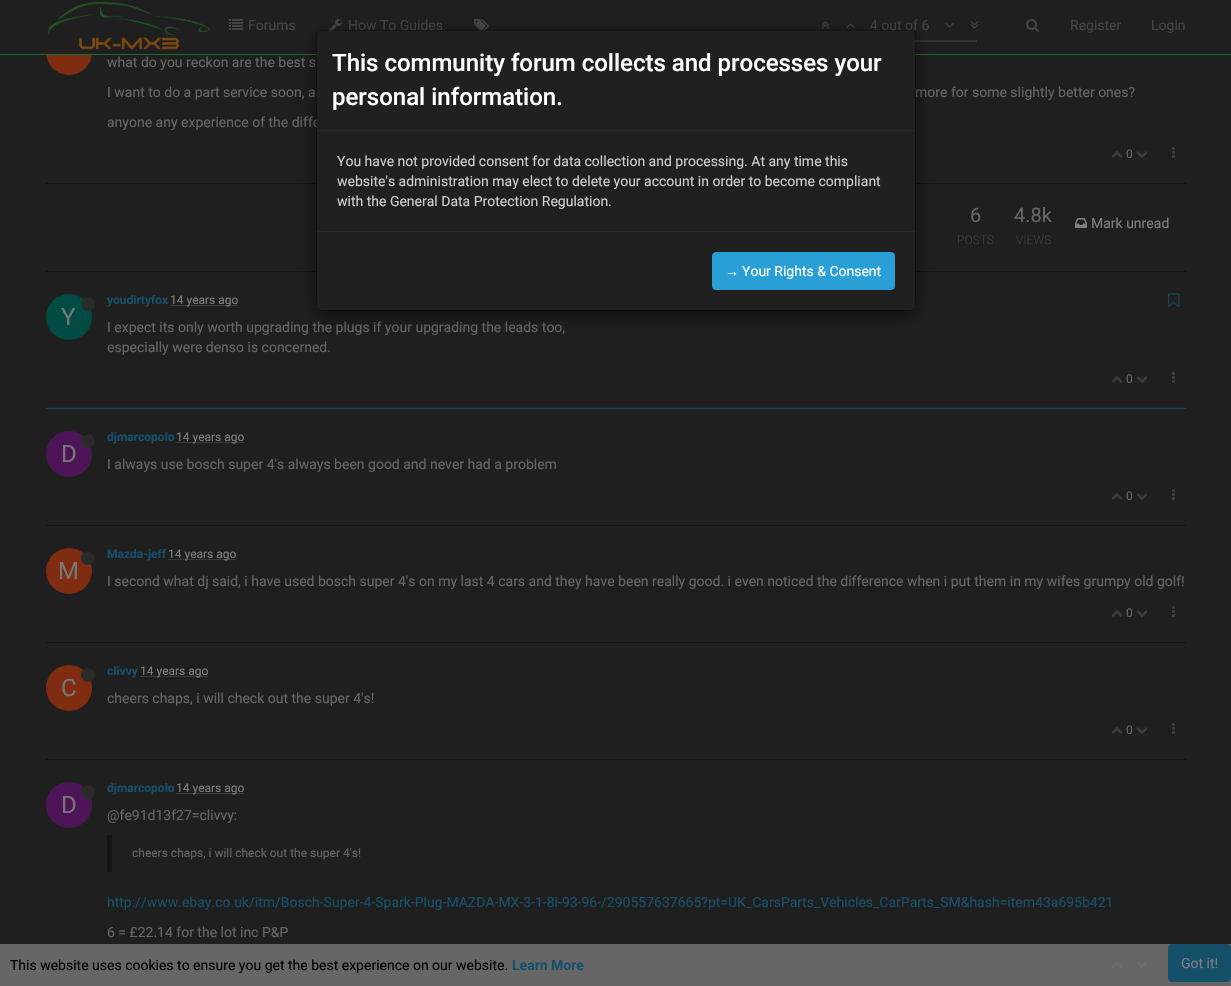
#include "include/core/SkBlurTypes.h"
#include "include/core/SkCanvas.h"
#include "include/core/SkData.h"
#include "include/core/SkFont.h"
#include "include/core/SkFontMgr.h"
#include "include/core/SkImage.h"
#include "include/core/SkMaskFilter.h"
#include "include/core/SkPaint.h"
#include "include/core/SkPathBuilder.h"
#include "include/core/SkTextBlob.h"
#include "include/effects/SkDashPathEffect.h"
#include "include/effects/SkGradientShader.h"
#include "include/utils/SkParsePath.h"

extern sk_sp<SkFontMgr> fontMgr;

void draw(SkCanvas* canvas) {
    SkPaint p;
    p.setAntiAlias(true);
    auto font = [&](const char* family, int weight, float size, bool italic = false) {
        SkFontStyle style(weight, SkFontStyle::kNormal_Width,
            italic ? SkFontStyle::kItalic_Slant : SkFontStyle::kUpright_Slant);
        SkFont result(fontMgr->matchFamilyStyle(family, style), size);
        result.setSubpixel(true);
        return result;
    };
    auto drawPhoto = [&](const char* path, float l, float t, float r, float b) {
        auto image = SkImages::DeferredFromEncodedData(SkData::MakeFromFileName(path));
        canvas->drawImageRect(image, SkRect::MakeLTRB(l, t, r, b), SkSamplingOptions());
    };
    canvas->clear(0xFF1F1F1F);
    p.setColor(0xFF666666);
    canvas->drawRect(SkRect::MakeLTRB(0, 944, 1231, 986), p);
    p.setColor(0xFF802C11);
    canvas->drawCircle(69, 52, 23, p);
    p.setColor(0xFF1F1F1F);
    canvas->drawRect(SkRect::MakeLTRB(46, 29, 92, 54), p);
    p.setColor(0xFF186F27);
    canvas->drawRect(SkRect::MakeLTRB(0, 54, 1231, 55), p);
    drawPhoto("media/1.png", 47, 1, 211, 50);
    drawPhoto("media/2.png", 229, 19, 243, 30);
    auto font1 = font("Roboto", 400, 14);
    p.setColor(0xFF444444);
    canvas->drawString("Forums", 248, 30, font1, p);
    drawPhoto("media/3.png", 329, 19, 342, 31);
    canvas->drawString("How To Guides", 348, 30, font1, p);
    drawPhoto("media/4.png", 474, 19, 489, 31);
    drawPhoto("media/5.png", 821, 21, 830, 29);
    drawPhoto("media/6.png", 846, 23, 855, 28);
    canvas->drawString("4 out of 6", 870, 30, font1, p);
    drawPhoto("media/7.png", 945, 23, 954, 28);
    drawPhoto("media/8.png", 970, 21, 979, 29);
    p.setColor(0xFF333333);
    canvas->drawRect(SkRect::MakeLTRB(915, 40, 977, 42), p);
    drawPhoto("media/9.png", 1026, 19, 1039, 32);
    p.setColor(0xFF444444);
    canvas->drawString("Register", 1070, 30, font1, p);
    canvas->drawString("Login", 1151, 30, font1, p);
    p.setColor(0xFF686767);
    {
        const struct { const char* s; float x, y; } items[] = {
            {"what do you reckon are the best s", 107, 67},
            {"I want to do a part service soon, a", 107, 97},
            {"more for some slightly better ones?", 915, 97},
            {"anyone any experience of the diffe", 107, 127},
        };
        for (auto [s, x, y] : items) {
            canvas->drawString(s, x, y, font1, p);
        }
    }
    drawPhoto("media/10.png", 1111, 151, 1123, 158);
    auto font2 = font("Roboto", 400, 12);
    canvas->drawString("0", 1126, 158, font2, p);
    drawPhoto("media/11.png", 1136, 151, 1148, 158);
    drawPhoto("media/12.png", 1172, 147, 1175, 158);
    p.setColor(0xFF141414);
    canvas->drawRect(SkRect::MakeLTRB(46, 183, 1186, 184), p);
    auto font3 = font("Roboto", 400, 20);
    p.setColor(0xFF686767);
    canvas->drawString("6", 970, 222, font3, p);
    auto font4 = font("Roboto", 300, 12);
    p.setColor(0xFF3C3C3C);
    canvas->drawString("POSTS", 957, 244, font4, p);
    p.setColor(0xFF686767);
    canvas->drawString("4.8k", 1014, 222, font3, p);
    p.setColor(0xFF3C3C3C);
    canvas->drawString("VIEWS", 1016, 244, font4, p);
    drawPhoto("media/13.png", 1075, 218, 1087, 228);
    p.setColor(0xFF808080);
    canvas->drawString("Mark unread", 1091, 228, font1, p);
    p.setColor(0xFF141414);
    canvas->drawRect(SkRect::MakeLTRB(46, 271, 1186, 272), p);
    auto font5 = font("Roboto", 700, 12);
    p.setColor(0xFF15506B);
    canvas->drawString("youdirtyfox", 107, 304, font5, p);
    p.setColor(0xFF3C3C3C);
    canvas->drawRect(SkRect::MakeLTRB(170, 305, 238, 306), p);
    p.setColor(0xFF808080);
    canvas->drawString("14 years ago", 170, 304, font2, p);
    drawPhoto("media/14.png", 1168, 293, 1180, 307);
    p.setColor(0xFF004B44);
    canvas->drawCircle(69, 317, 23, p);
    p.setColor(0xFF2B2B2B);
    canvas->drawPath(SkPathBuilder().moveTo(94, 301).cubicTo(98.5f, 308.5f, 86.5f, 315.5f, 82, 307.5f).cubicTo(77.5f, 300, 89, 293, 94, 301).close().detach(), p);
    auto font6 = font("Roboto", 400, 24);
    p.setColor(0xFF777777);
    canvas->drawString("Y", 61, 325, font6, p);
    p.setColor(0xFF686767);
    canvas->drawString("I expect its only worth upgrading the plugs if your upgrading the leads too,", 107, 332, font1, p);
    canvas->drawString("especially were denso is concerned.", 107, 352, font1, p);
    drawPhoto("media/10.png", 1111, 376, 1123, 383);
    canvas->drawString("0", 1126, 383, font2, p);
    drawPhoto("media/11.png", 1136, 376, 1148, 383);
    drawPhoto("media/12.png", 1172, 372, 1175, 383);
    p.setColor(0xFF2E606F);
    p.setMaskFilter(SkMaskFilter::MakeBlur(kNormal_SkBlurStyle, 0.5f));
    canvas->drawRect(SkRect::MakeLTRB(46, 408, 1186, 409), p);
    p.setMaskFilter(nullptr);
    p.setColor(0xFF124858);
    canvas->drawRect(SkRect::MakeLTRB(46, 408, 1186, 409), p);
    p.setColor(0xFF15506B);
    canvas->drawString("djmarcopolo", 107, 441, font5, p);
    p.setColor(0xFF3C3C3C);
    canvas->drawRect(SkRect::MakeLTRB(176, 442, 244, 443), p);
    p.setColor(0xFF808080);
    canvas->drawString("14 years ago", 176, 441, font2, p);
    p.setColor(0xFF4E1458);
    canvas->drawCircle(69, 454, 23, p);
    p.setColor(0xFF2B2B2B);
    canvas->drawPath(SkPathBuilder().moveTo(94, 438).cubicTo(98.5f, 445.5f, 86.5f, 452.5f, 82, 444.5f).cubicTo(77.5f, 437, 89, 430, 94, 438).close().detach(), p);
    p.setColor(0xFF777777);
    canvas->drawString("D", 61, 462, font6, p);
    p.setColor(0xFF686767);
    canvas->drawString("I always use bosch super 4's always been good and never had a problem", 107, 469, font1, p);
    drawPhoto("media/10.png", 1111, 493, 1123, 500);
    canvas->drawString("0", 1126, 500, font2, p);
    drawPhoto("media/11.png", 1136, 493, 1148, 500);
    drawPhoto("media/12.png", 1172, 489, 1175, 500);
    p.setColor(0xFF141414);
    canvas->drawRect(SkRect::MakeLTRB(46, 525, 1186, 526), p);
    p.setColor(0xFF15506B);
    canvas->drawString("Mazda-jeff", 107, 558, font5, p);
    p.setColor(0xFF3C3C3C);
    canvas->drawRect(SkRect::MakeLTRB(168, 559, 236, 560), p);
    p.setColor(0xFF808080);
    canvas->drawString("14 years ago", 168, 558, font2, p);
    p.setColor(0xFF802C11);
    canvas->drawCircle(69, 571, 23, p);
    p.setColor(0xFF2B2B2B);
    canvas->drawPath(SkPathBuilder().moveTo(94, 555).cubicTo(98.5f, 562.5f, 86.5f, 569.5f, 82, 561.5f).cubicTo(77.5f, 554, 89, 547, 94, 555).close().detach(), p);
    p.setColor(0xFF777777);
    canvas->drawString("M", 58, 579, font6, p);
    p.setColor(0xFF686767);
    canvas->drawString("I second what dj said, i have used bosch super 4's on my last 4 cars and they have been really good. i even noticed the difference when i put them in my wifes grumpy old golf!", 107, 586, font1, p);
    drawPhoto("media/10.png", 1111, 610, 1123, 617);
    canvas->drawString("0", 1126, 617, font2, p);
    drawPhoto("media/11.png", 1136, 610, 1148, 617);
    drawPhoto("media/12.png", 1172, 606, 1175, 617);
    p.setColor(0xFF141414);
    canvas->drawRect(SkRect::MakeLTRB(46, 642, 1186, 643), p);
    p.setColor(0xFF15506B);
    canvas->drawString("clivvy", 107, 675, font5, p);
    p.setColor(0xFF3C3C3C);
    canvas->drawRect(SkRect::MakeLTRB(140, 676, 208, 677), p);
    p.setColor(0xFF808080);
    canvas->drawString("14 years ago", 140, 675, font2, p);
    p.setColor(0xFF802C11);
    canvas->drawCircle(69, 688, 23, p);
    p.setColor(0xFF2B2B2B);
    canvas->drawPath(SkPathBuilder().moveTo(94, 672).cubicTo(98.5f, 679.5f, 86.5f, 686.5f, 82, 678.5f).cubicTo(77.5f, 671, 89, 664, 94, 672).close().detach(), p);
    p.setColor(0xFF777777);
    canvas->drawString("C", 61, 696, font6, p);
    p.setColor(0xFF686767);
    canvas->drawString("cheers chaps, i will check out the super 4's!", 107, 703, font1, p);
    drawPhoto("media/10.png", 1111, 727, 1123, 734);
    canvas->drawString("0", 1126, 734, font2, p);
    drawPhoto("media/11.png", 1136, 727, 1148, 734);
    drawPhoto("media/12.png", 1172, 723, 1175, 734);
    p.setColor(0xFF141414);
    canvas->drawRect(SkRect::MakeLTRB(46, 759, 1186, 760), p);
    p.setColor(0xFF15506B);
    canvas->drawString("djmarcopolo", 107, 792, font5, p);
    p.setColor(0xFF3C3C3C);
    canvas->drawRect(SkRect::MakeLTRB(176, 793, 244, 794), p);
    p.setColor(0xFF808080);
    canvas->drawString("14 years ago", 176, 792, font2, p);
    p.setColor(0xFF4E1458);
    canvas->drawCircle(69, 805, 23, p);
    p.setColor(0xFF2B2B2B);
    canvas->drawPath(SkPathBuilder().moveTo(94, 789).cubicTo(98.5f, 796.5f, 86.5f, 803.5f, 82, 795.5f).cubicTo(77.5f, 788, 89, 781, 94, 789).close().detach(), p);
    p.setColor(0xFF777777);
    canvas->drawString("D", 61, 813, font6, p);
    p.setColor(0xFF686767);
    canvas->drawString("@fe91d13f27=clivvy:", 107, 820, font1, p);
    p.setColor(0xFF141414);
    canvas->drawRect(SkRect::MakeLTRB(107, 835, 112, 872), p);
    p.setColor(0xFF686767);
    canvas->drawString("cheers chaps, i will check out the super 4's!", 132, 857, font2, p);
    p.setColor(0xFF15506B);
    canvas->drawString("http://www.ebay.co.uk/itm/Bosch-Super-4-Spark-Plug-MAZDA-MX-3-1-8i-93-96-/290557637665?pt=UK_CarsParts_Vehicles_CarParts_SM&hash=item43a695b421", 107, 907, font1, p);
    p.setColor(0xFF686767);
    canvas->drawString("6 = £22.14 for the lot inc P&P", 107, 937, font1, p);
    drawPhoto("media/15.png", 1111, 961, 1123, 968);
    drawPhoto("media/16.png", 1136, 961, 1148, 968);
    p.setColor(0x80000000);
    p.setMaskFilter(SkMaskFilter::MakeBlur(kNormal_SkBlurStyle, 7.5f));
    canvas->drawRoundRect(SkRect::MakeLTRB(316, 35, 916, 316), 6, 6, p);
    p.setMaskFilter(nullptr);
    p.setColor(0xFF202020);
    canvas->drawRoundRect(SkRect::MakeLTRB(317, 31, 915, 310), 5, 5, p);
    p.setStyle(SkPaint::kStroke_Style);
    p.setStrokeWidth(1);
    p.setColor(0x33000000);
    canvas->drawRoundRect(SkRect::MakeLTRB(316.5f, 30.5f, 915.5f, 310.5f), 5.5f, 5.5f, p);
    p.setStyle(SkPaint::kFill_Style);
    p.setColor(0xFF282828);
    canvas->drawRect(SkRect::MakeLTRB(317, 130, 915, 131), p);
    auto font7 = font("Roboto", 500, 24);
    p.setColor(0xFFFFFFFF);
    canvas->drawString("This community forum collects and processes your", 332, 71, font7, p);
    canvas->drawString("personal information.", 332, 105, font7, p);
    p.setColor(0xFFCFCDCD);
    {
        const struct { const char* s; float x, y; } items[] = {
            {"You have not provided consent for data collection and processing. At any time this", 337, 166},
            {"website's administration may elect to delete your account in order to become compliant", 337, 186},
            {"with the General Data Protection Regulation.", 337, 206},
        };
        for (auto [s, x, y] : items) {
            canvas->drawString(s, x, y, font1, p);
        }
    }
    p.setColor(0xFF282828);
    canvas->drawRect(SkRect::MakeLTRB(317, 231, 915, 232), p);
    p.setColor(0xFF2A9FD6);
    canvas->drawRoundRect(SkRect::MakeLTRB(712.5f, 252.5f, 894.5f, 289.5f), 3.5f, 3.5f, p);
    p.setStyle(SkPaint::kStroke_Style);
    canvas->drawRoundRect(SkRect::MakeLTRB(712.5f, 252.5f, 894.5f, 289.5f), 3.5f, 3.5f, p);
    auto font8 = font("Liberation Sans", 400, 14);
    p.setStyle(SkPaint::kFill_Style);
    p.setColor(0xFFFFFFFF);
    canvas->drawString("→", 725, 276, font8, p);
    canvas->drawString("Your Rights & Consent", 742, 276, font1, p);
    p.setColor(0xFF000000);
    canvas->drawString("This website uses cookies to ensure you get the best experience on our website.", 10, 970, font1, p);
    auto font9 = font("Roboto", 700, 14);
    p.setColor(0xFF15506B);
    canvas->drawString("Learn More", 512, 970, font9, p);
    canvas->drawRoundRect(SkRect::MakeLTRB(1168.5f, 944.5f, 1230.5f, 981.5f), 3.5f, 3.5f, p);
    p.setStyle(SkPaint::kStroke_Style);
    canvas->drawRoundRect(SkRect::MakeLTRB(1168.5f, 944.5f, 1230.5f, 981.5f), 3.5f, 3.5f, p);
    p.setStyle(SkPaint::kFill_Style);
    p.setColor(0xFF808080);
    canvas->drawString("Got it!", 1181, 968, font1, p);
}
